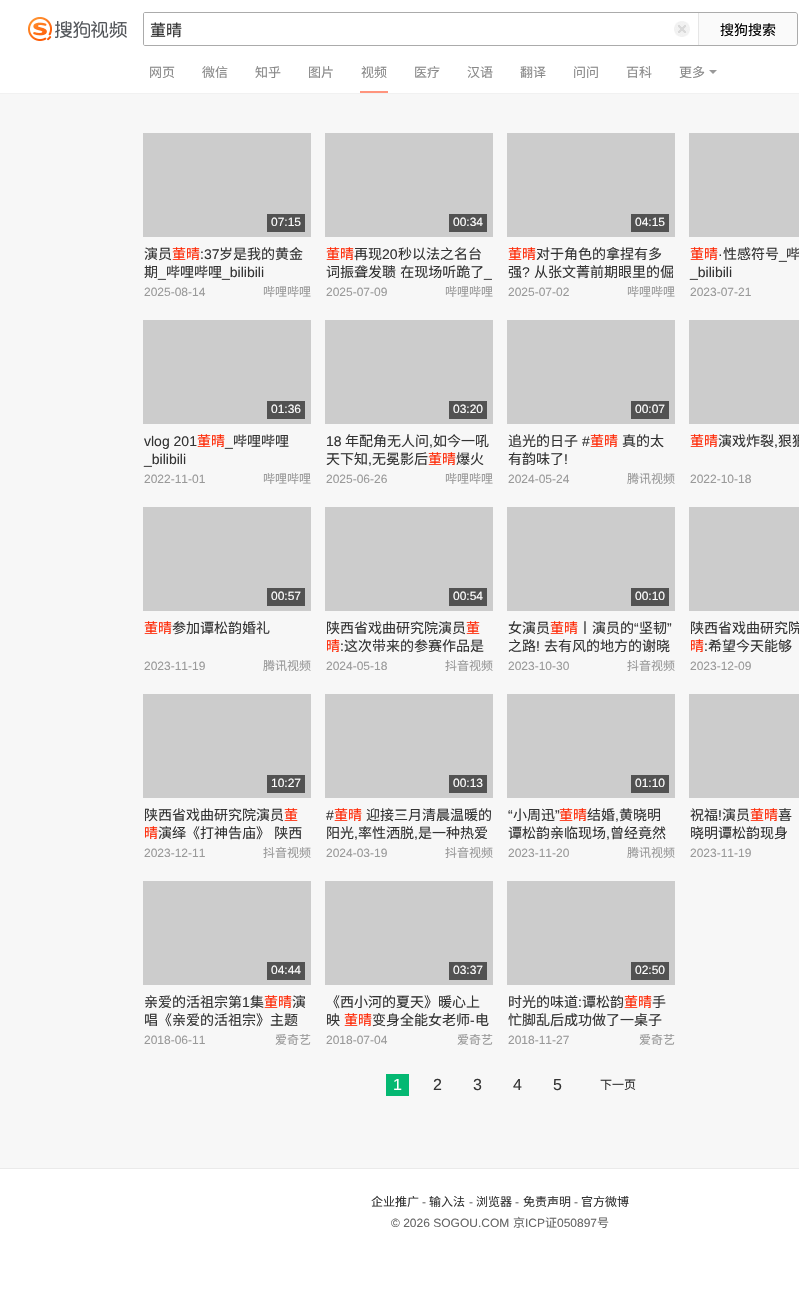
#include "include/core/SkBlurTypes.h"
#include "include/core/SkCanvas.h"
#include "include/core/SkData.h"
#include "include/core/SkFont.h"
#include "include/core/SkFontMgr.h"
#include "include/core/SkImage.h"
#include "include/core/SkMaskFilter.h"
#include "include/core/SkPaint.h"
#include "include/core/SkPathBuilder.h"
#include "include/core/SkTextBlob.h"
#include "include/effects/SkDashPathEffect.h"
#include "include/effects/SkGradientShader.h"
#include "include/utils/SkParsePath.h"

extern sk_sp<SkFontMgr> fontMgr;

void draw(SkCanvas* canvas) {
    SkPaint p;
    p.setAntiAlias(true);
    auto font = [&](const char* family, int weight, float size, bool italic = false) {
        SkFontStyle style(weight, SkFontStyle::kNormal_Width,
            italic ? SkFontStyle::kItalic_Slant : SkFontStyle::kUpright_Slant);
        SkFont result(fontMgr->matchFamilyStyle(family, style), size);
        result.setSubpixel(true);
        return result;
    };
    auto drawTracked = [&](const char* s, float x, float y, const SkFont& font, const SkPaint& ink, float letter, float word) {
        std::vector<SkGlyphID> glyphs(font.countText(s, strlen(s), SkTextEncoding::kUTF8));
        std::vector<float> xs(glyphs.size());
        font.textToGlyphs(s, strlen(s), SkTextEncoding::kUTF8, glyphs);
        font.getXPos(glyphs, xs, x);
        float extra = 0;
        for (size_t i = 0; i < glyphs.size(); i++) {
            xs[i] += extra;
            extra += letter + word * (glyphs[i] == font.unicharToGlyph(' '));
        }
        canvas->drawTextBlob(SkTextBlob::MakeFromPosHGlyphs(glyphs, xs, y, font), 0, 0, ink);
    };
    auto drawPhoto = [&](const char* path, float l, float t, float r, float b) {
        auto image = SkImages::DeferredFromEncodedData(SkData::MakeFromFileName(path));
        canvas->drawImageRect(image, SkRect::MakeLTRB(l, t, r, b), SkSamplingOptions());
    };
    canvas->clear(0xFFFFFFFF);
    p.setColor(0xFFF1F1F1);
    canvas->drawRect(SkRect::MakeLTRB(0, 93, 799, 94), p);
    drawPhoto("media/1.png", 28, 17, 127, 41);
    p.setStyle(SkPaint::kStroke_Style);
    p.setStrokeWidth(1);
    p.setColor(0xFFABABAB);
    canvas->drawPath(SkPathBuilder().moveTo(145, 12.5f).lineTo(795, 12.5f).cubicTo(796.5f, 12.5f, 797.5f, 13.5f, 797.5f, 15).lineTo(797.5f, 43).cubicTo(797.5f, 44.5f, 796.5f, 45.5f, 795, 45.5f).lineTo(145, 45.5f).cubicTo(144, 45.5f, 143.5f, 45, 143.5f, 44).lineTo(143.5f, 14).cubicTo(143.5f, 13, 144, 12.5f, 145, 12.5f).close().detach(), p);
    auto font1 = font("Noto Sans CJK SC", 400, 16);
    p.setStyle(SkPaint::kFill_Style);
    p.setColor(0xFF333333);
    canvas->drawString("董晴", 150, 36, font1, p);
    drawPhoto("media/2.png", 674, 21, 690, 37);
    p.setColor(0xFFFAFAFA);
    canvas->drawPath(SkPathBuilder().moveTo(698, 13).lineTo(794, 13).cubicTo(795.5f, 13, 797, 14.5f, 797, 16).lineTo(797, 42).cubicTo(797, 43.5f, 795.5f, 45, 794, 45).lineTo(698, 45).close().detach(), p);
    p.setColor(0xFFE6E6E6);
    canvas->drawRect(SkRect::MakeLTRB(698, 13, 699, 45), p);
    auto font2 = font("Noto Sans CJK SC", 400, 14);
    p.setColor(0xFF000000);
    canvas->drawString("搜狗搜索", 720, 35, font2, p);
    auto font3 = font("Noto Sans CJK SC", 400, 13);
    p.setColor(0xFF888888);
    {
        const struct { const char* s; float x, y; } items[] = {
            {"网页", 149, 77},
            {"微信", 202, 77},
            {"知乎", 255, 77},
            {"图片", 308, 77},
        };
        for (auto [s, x, y] : items) {
            canvas->drawString(s, x, y, font3, p);
        }
    }
    p.setColor(0xFFFF947D);
    canvas->drawRect(SkRect::MakeLTRB(360, 91, 388, 93), p);
    p.setColor(0xFF888888);
    {
        const struct { const char* s; float x, y; } items[] = {
            {"视频", 361, 77},
            {"医疗", 414, 77},
            {"汉语", 467, 77},
            {"翻译", 520, 77},
            {"问问", 573, 77},
            {"百科", 626, 77},
            {"更多", 679, 77},
        };
        for (auto [s, x, y] : items) {
            canvas->drawString(s, x, y, font3, p);
        }
    }
    p.setColor(0xFF999999);
    canvas->drawPath(SkPathBuilder().moveTo(709, 70).lineTo(717, 70).lineTo(713, 74).close().detach(), p);
    {
        const struct { float l, t, r, b; SkColor color; } items[] = {
            {0, 94, 799, 1168, 0xFFF7F7F7},
            {143, 133, 311, 237, 0xFFCCCCCC},
            {267, 214, 305, 232, 0xFF525252},
        };
        for (auto [l, t, r, b, color] : items) {
            p.setColor(color);
            canvas->drawRect(SkRect::MakeLTRB(l, t, r, b), p);
        }
    }
    auto font4 = font("Liberation Sans", 400, 12);
    p.setColor(0xFFFFFFFF);
    canvas->drawString("07:15", 271, 226, font4, p);
    p.setColor(0xFF333333);
    canvas->drawString("演员", 144, 259, font2, p);
    p.setColor(0xFFFF2400);
    canvas->drawString("董晴", 172, 259, font2, p);
    auto font5 = font("Liberation Sans", 400, 14);
    p.setColor(0xFF333333);
    canvas->drawString(":37", 200, 259, font5, p);
    canvas->drawString("岁是我的黄金", 219, 259, font2, p);
    canvas->drawString("期", 144, 277, font2, p);
    canvas->drawString("_", 158, 277, font5, p);
    canvas->drawString("哔哩哔哩", 166, 277, font2, p);
    canvas->drawString("_bilibili", 222, 277, font5, p);
    p.setColor(0xFF999999);
    canvas->drawString("2025-08-14", 144, 296, font4, p);
    auto font6 = font("Noto Sans CJK SC", 400, 12);
    canvas->drawString("哔哩哔哩", 263, 296, font6, p);
    p.setColor(0xFFCCCCCC);
    canvas->drawRect(SkRect::MakeLTRB(325, 133, 493, 237), p);
    p.setColor(0xFF525252);
    canvas->drawRect(SkRect::MakeLTRB(449, 214, 487, 232), p);
    p.setColor(0xFFFFFFFF);
    canvas->drawString("00:34", 453, 226, font4, p);
    p.setColor(0xFFFF2400);
    canvas->drawString("董晴", 326, 259, font2, p);
    p.setColor(0xFF333333);
    canvas->drawString("再现", 354, 259, font2, p);
    canvas->drawString("20", 382, 259, font5, p);
    canvas->drawString("秒以法之名台", 398, 259, font2, p);
    drawTracked("词振聋发聩 在现场听跪了", 326, 277, font2, p, 0, 1);
    canvas->drawString("_", 484, 277, font5, p);
    p.setColor(0xFF999999);
    canvas->drawString("2025-07-09", 326, 296, font4, p);
    canvas->drawString("哔哩哔哩", 445, 296, font6, p);
    p.setColor(0xFFCCCCCC);
    canvas->drawRect(SkRect::MakeLTRB(507, 133, 675, 237), p);
    p.setColor(0xFF525252);
    canvas->drawRect(SkRect::MakeLTRB(631, 214, 669, 232), p);
    p.setColor(0xFFFFFFFF);
    canvas->drawString("04:15", 635, 226, font4, p);
    p.setColor(0xFFFF2400);
    canvas->drawString("董晴", 508, 259, font2, p);
    p.setColor(0xFF333333);
    canvas->drawString("对于角色的拿捏有多", 536, 259, font2, p);
    canvas->drawString("强", 508, 277, font2, p);
    canvas->drawString("?", 522, 277, font5, p);
    canvas->drawString("从张文菁前期眼里的倔", 534, 277, font2, p);
    p.setColor(0xFF999999);
    canvas->drawString("2025-07-02", 508, 296, font4, p);
    canvas->drawString("哔哩哔哩", 627, 296, font6, p);
    p.setColor(0xFFCCCCCC);
    canvas->drawRect(SkRect::MakeLTRB(689, 133, 799, 237), p);
    p.setColor(0xFFFF2400);
    canvas->drawString("董晴", 690, 259, font2, p);
    p.setColor(0xFF333333);
    canvas->drawString("·", 718, 259, font5, p);
    canvas->drawString("性感符号", 723, 259, font2, p);
    canvas->drawString("哔", 786, 259, font2, p);
    canvas->drawString("_", 779, 259, font5, p);
    canvas->drawString("_bilibili", 690, 277, font5, p);
    p.setColor(0xFF999999);
    canvas->drawString("2023-07-21", 690, 296, font4, p);
    p.setColor(0xFFCCCCCC);
    canvas->drawRect(SkRect::MakeLTRB(143, 320, 311, 424), p);
    p.setColor(0xFF525252);
    canvas->drawRect(SkRect::MakeLTRB(267, 401, 305, 419), p);
    p.setColor(0xFFFFFFFF);
    canvas->drawString("01:36", 271, 413, font4, p);
    p.setColor(0xFF333333);
    canvas->drawString("vlog 201", 144, 446, font5, p);
    p.setColor(0xFFFF2400);
    canvas->drawString("董晴", 197, 446, font2, p);
    p.setColor(0xFF333333);
    canvas->drawString("_", 225, 446, font5, p);
    canvas->drawString("哔哩哔哩", 233, 446, font2, p);
    canvas->drawString("_bilibili", 144, 464, font5, p);
    p.setColor(0xFF999999);
    canvas->drawString("2022-11-01", 144, 483, font4, p);
    canvas->drawString("哔哩哔哩", 263, 483, font6, p);
    p.setColor(0xFFCCCCCC);
    canvas->drawRect(SkRect::MakeLTRB(325, 320, 493, 424), p);
    p.setColor(0xFF525252);
    canvas->drawRect(SkRect::MakeLTRB(449, 401, 487, 419), p);
    p.setColor(0xFFFFFFFF);
    canvas->drawString("03:20", 453, 413, font4, p);
    p.setColor(0xFF333333);
    canvas->drawString("18", 326, 446, font5, p);
    canvas->drawString("年配角无人问", 345, 446, font2, p);
    canvas->drawString(",", 429, 446, font5, p);
    canvas->drawString("如今一吼", 433, 446, font2, p);
    canvas->drawString("天下知", 326, 464, font2, p);
    canvas->drawString(",", 368, 464, font5, p);
    canvas->drawString("无冕影后", 372, 464, font2, p);
    p.setColor(0xFFFF2400);
    canvas->drawString("董晴", 428, 464, font2, p);
    p.setColor(0xFF333333);
    canvas->drawString("爆火", 456, 464, font2, p);
    p.setColor(0xFF999999);
    canvas->drawString("2025-06-26", 326, 483, font4, p);
    canvas->drawString("哔哩哔哩", 445, 483, font6, p);
    p.setColor(0xFFCCCCCC);
    canvas->drawRect(SkRect::MakeLTRB(507, 320, 675, 424), p);
    p.setColor(0xFF525252);
    canvas->drawRect(SkRect::MakeLTRB(631, 401, 669, 419), p);
    p.setColor(0xFFFFFFFF);
    canvas->drawString("00:07", 635, 413, font4, p);
    p.setColor(0xFF333333);
    canvas->drawString("追光的日子", 508, 446, font2, p);
    canvas->drawString("#", 582, 446, font5, p);
    p.setColor(0xFFFF2400);
    canvas->drawString("董晴", 590, 446, font2, p);
    p.setColor(0xFF333333);
    canvas->drawString("真的太", 622, 446, font2, p);
    canvas->drawString("有韵味了", 508, 464, font2, p);
    canvas->drawString("!", 564, 464, font5, p);
    p.setColor(0xFF999999);
    canvas->drawString("2024-05-24", 508, 483, font4, p);
    canvas->drawString("腾讯视频", 627, 483, font6, p);
    p.setColor(0xFFCCCCCC);
    canvas->drawRect(SkRect::MakeLTRB(689, 320, 799, 424), p);
    p.setColor(0xFFFF2400);
    canvas->drawString("董晴", 690, 446, font2, p);
    p.setColor(0xFF333333);
    canvas->drawString("演戏炸裂", 718, 446, font2, p);
    canvas->drawString(",", 774, 446, font5, p);
    canvas->drawString("狠狠", 778, 446, font2, p);
    p.setColor(0xFF999999);
    canvas->drawString("2022-10-18", 690, 483, font4, p);
    p.setColor(0xFFCCCCCC);
    canvas->drawRect(SkRect::MakeLTRB(143, 507, 311, 611), p);
    p.setColor(0xFF525252);
    canvas->drawRect(SkRect::MakeLTRB(267, 588, 305, 606), p);
    p.setColor(0xFFFFFFFF);
    canvas->drawString("00:57", 271, 600, font4, p);
    p.setColor(0xFFFF2400);
    canvas->drawString("董晴", 144, 633, font2, p);
    p.setColor(0xFF333333);
    canvas->drawString("参加谭松韵婚礼", 172, 633, font2, p);
    p.setColor(0xFF999999);
    canvas->drawString("2023-11-19", 144, 670, font4, p);
    canvas->drawString("腾讯视频", 263, 670, font6, p);
    p.setColor(0xFFCCCCCC);
    canvas->drawRect(SkRect::MakeLTRB(325, 507, 493, 611), p);
    p.setColor(0xFF525252);
    canvas->drawRect(SkRect::MakeLTRB(449, 588, 487, 606), p);
    p.setColor(0xFFFFFFFF);
    canvas->drawString("00:54", 453, 600, font4, p);
    p.setColor(0xFF333333);
    canvas->drawString("陕西省戏曲研究院演员", 326, 633, font2, p);
    p.setColor(0xFFFF2400);
    canvas->drawString("董", 466, 633, font2, p);
    canvas->drawString("晴", 326, 651, font2, p);
    p.setColor(0xFF333333);
    canvas->drawString(":", 340, 651, font5, p);
    canvas->drawString("这次带来的参赛作品是", 344, 651, font2, p);
    p.setColor(0xFF999999);
    canvas->drawString("2024-05-18", 326, 670, font4, p);
    canvas->drawString("抖音视频", 445, 670, font6, p);
    p.setColor(0xFFCCCCCC);
    canvas->drawRect(SkRect::MakeLTRB(507, 507, 675, 611), p);
    p.setColor(0xFF525252);
    canvas->drawRect(SkRect::MakeLTRB(631, 588, 669, 606), p);
    p.setColor(0xFFFFFFFF);
    canvas->drawString("00:10", 635, 600, font4, p);
    p.setColor(0xFF333333);
    canvas->drawString("女演员", 508, 633, font2, p);
    p.setColor(0xFFFF2400);
    canvas->drawString("董晴", 550, 633, font2, p);
    p.setColor(0xFF333333);
    canvas->drawString("丨演员的", 578, 633, font2, p);
    canvas->drawString("“", 634, 633, font5, p);
    canvas->drawString("坚韧", 639, 633, font2, p);
    canvas->drawString("”", 667, 633, font5, p);
    canvas->drawString("之路", 508, 651, font2, p);
    canvas->drawString("!", 536, 651, font5, p);
    canvas->drawString("去有风的地方的谢晓", 544, 651, font2, p);
    p.setColor(0xFF999999);
    canvas->drawString("2023-10-30", 508, 670, font4, p);
    canvas->drawString("抖音视频", 627, 670, font6, p);
    p.setColor(0xFFCCCCCC);
    canvas->drawRect(SkRect::MakeLTRB(689, 507, 799, 611), p);
    p.setColor(0xFF333333);
    canvas->drawString("陕西省戏曲研究院", 690, 633, font2, p);
    p.setColor(0xFFFF2400);
    canvas->drawString("晴", 690, 651, font2, p);
    p.setColor(0xFF333333);
    canvas->drawString(":", 704, 651, font5, p);
    canvas->drawString("希望今天能够", 708, 651, font2, p);
    p.setColor(0xFF999999);
    canvas->drawString("2023-12-09", 690, 670, font4, p);
    p.setColor(0xFFCCCCCC);
    canvas->drawRect(SkRect::MakeLTRB(143, 694, 311, 798), p);
    p.setColor(0xFF525252);
    canvas->drawRect(SkRect::MakeLTRB(267, 775, 305, 793), p);
    p.setColor(0xFFFFFFFF);
    canvas->drawString("10:27", 271, 787, font4, p);
    p.setColor(0xFF333333);
    canvas->drawString("陕西省戏曲研究院演员", 144, 820, font2, p);
    p.setColor(0xFFFF2400);
    canvas->drawString("董", 284, 820, font2, p);
    canvas->drawString("晴", 144, 838, font2, p);
    p.setColor(0xFF333333);
    drawTracked("演绎《打神告庙》 陕西", 158, 838, font2, p, 0, 1);
    p.setColor(0xFF999999);
    canvas->drawString("2023-12-11", 144, 857, font4, p);
    canvas->drawString("抖音视频", 263, 857, font6, p);
    p.setColor(0xFFCCCCCC);
    canvas->drawRect(SkRect::MakeLTRB(325, 694, 493, 798), p);
    p.setColor(0xFF525252);
    canvas->drawRect(SkRect::MakeLTRB(449, 775, 487, 793), p);
    p.setColor(0xFFFFFFFF);
    canvas->drawString("00:13", 453, 787, font4, p);
    p.setColor(0xFF333333);
    canvas->drawString("#", 326, 820, font5, p);
    p.setColor(0xFFFF2400);
    canvas->drawString("董晴", 334, 820, font2, p);
    p.setColor(0xFF333333);
    canvas->drawString("迎接三月清晨温暖的", 366, 820, font2, p);
    canvas->drawString("阳光", 326, 838, font2, p);
    canvas->drawString(",", 354, 838, font5, p);
    canvas->drawString("率性洒脱", 358, 838, font2, p);
    canvas->drawString(",", 414, 838, font5, p);
    canvas->drawString("是一种热爱", 418, 838, font2, p);
    p.setColor(0xFF999999);
    canvas->drawString("2024-03-19", 326, 857, font4, p);
    canvas->drawString("抖音视频", 445, 857, font6, p);
    p.setColor(0xFFCCCCCC);
    canvas->drawRect(SkRect::MakeLTRB(507, 694, 675, 798), p);
    p.setColor(0xFF525252);
    canvas->drawRect(SkRect::MakeLTRB(631, 775, 669, 793), p);
    p.setColor(0xFFFFFFFF);
    canvas->drawString("01:10", 635, 787, font4, p);
    p.setColor(0xFF333333);
    canvas->drawString("“", 508, 820, font5, p);
    canvas->drawString("小周迅", 513, 820, font2, p);
    canvas->drawString("”", 555, 820, font5, p);
    p.setColor(0xFFFF2400);
    canvas->drawString("董晴", 559, 820, font2, p);
    p.setColor(0xFF333333);
    canvas->drawString("结婚", 587, 820, font2, p);
    canvas->drawString("黄晓明", 619, 820, font2, p);
    canvas->drawString(",", 615, 820, font5, p);
    canvas->drawString("谭松韵亲临现场", 508, 838, font2, p);
    canvas->drawString(",", 606, 838, font5, p);
    canvas->drawString("曾经竟然", 610, 838, font2, p);
    p.setColor(0xFF999999);
    canvas->drawString("2023-11-20", 508, 857, font4, p);
    canvas->drawString("腾讯视频", 627, 857, font6, p);
    p.setColor(0xFFCCCCCC);
    canvas->drawRect(SkRect::MakeLTRB(689, 694, 799, 798), p);
    p.setColor(0xFF333333);
    canvas->drawString("祝福", 690, 820, font2, p);
    canvas->drawString("!", 718, 820, font5, p);
    canvas->drawString("演员", 722, 820, font2, p);
    p.setColor(0xFFFF2400);
    canvas->drawString("董晴", 750, 820, font2, p);
    p.setColor(0xFF333333);
    canvas->drawString("喜", 778, 820, font2, p);
    canvas->drawString("晓明谭松韵现身", 690, 838, font2, p);
    p.setColor(0xFF999999);
    canvas->drawString("2023-11-19", 690, 857, font4, p);
    p.setColor(0xFFCCCCCC);
    canvas->drawRect(SkRect::MakeLTRB(143, 881, 311, 985), p);
    p.setColor(0xFF525252);
    canvas->drawRect(SkRect::MakeLTRB(267, 962, 305, 980), p);
    p.setColor(0xFFFFFFFF);
    canvas->drawString("04:44", 271, 974, font4, p);
    p.setColor(0xFF333333);
    canvas->drawString("亲爱的活祖宗第", 144, 1007, font2, p);
    canvas->drawString("1", 242, 1007, font5, p);
    canvas->drawString("集", 250, 1007, font2, p);
    p.setColor(0xFFFF2400);
    canvas->drawString("董晴", 264, 1007, font2, p);
    p.setColor(0xFF333333);
    canvas->drawString("演", 292, 1007, font2, p);
    canvas->drawString("唱《亲爱的活祖宗》主题", 144, 1025, font2, p);
    p.setColor(0xFF999999);
    canvas->drawString("2018-06-11", 144, 1044, font4, p);
    canvas->drawString("爱奇艺", 275, 1044, font6, p);
    p.setColor(0xFFCCCCCC);
    canvas->drawRect(SkRect::MakeLTRB(325, 881, 493, 985), p);
    p.setColor(0xFF525252);
    canvas->drawRect(SkRect::MakeLTRB(449, 962, 487, 980), p);
    p.setColor(0xFFFFFFFF);
    canvas->drawString("03:37", 453, 974, font4, p);
    p.setColor(0xFF333333);
    canvas->drawString("《西小河的夏天》暖心上", 326, 1007, font2, p);
    canvas->drawString("映", 326, 1025, font2, p);
    p.setColor(0xFFFF2400);
    canvas->drawString("董晴", 344, 1025, font2, p);
    p.setColor(0xFF333333);
    canvas->drawString("变身全能女老师", 372, 1025, font2, p);
    canvas->drawString("-", 470, 1025, font5, p);
    canvas->drawString("电", 475, 1025, font2, p);
    p.setColor(0xFF999999);
    canvas->drawString("2018-07-04", 326, 1044, font4, p);
    canvas->drawString("爱奇艺", 457, 1044, font6, p);
    p.setColor(0xFFCCCCCC);
    canvas->drawRect(SkRect::MakeLTRB(507, 881, 675, 985), p);
    p.setColor(0xFF525252);
    canvas->drawRect(SkRect::MakeLTRB(631, 962, 669, 980), p);
    p.setColor(0xFFFFFFFF);
    canvas->drawString("02:50", 635, 974, font4, p);
    p.setColor(0xFF333333);
    canvas->drawString("时光的味道", 508, 1007, font2, p);
    canvas->drawString(":", 578, 1007, font5, p);
    canvas->drawString("谭松韵", 582, 1007, font2, p);
    p.setColor(0xFFFF2400);
    canvas->drawString("董晴", 624, 1007, font2, p);
    p.setColor(0xFF333333);
    canvas->drawString("手", 652, 1007, font2, p);
    canvas->drawString("忙脚乱后成功做了一桌子", 508, 1025, font2, p);
    p.setColor(0xFF999999);
    canvas->drawString("2018-11-27", 508, 1044, font4, p);
    canvas->drawString("爱奇艺", 639, 1044, font6, p);
    p.setColor(0xFF04B872);
    canvas->drawRect(SkRect::MakeLTRB(386, 1074, 409, 1096), p);
    auto font7 = font("Liberation Sans", 400, 16);
    p.setColor(0xFFFFFFFF);
    canvas->drawString("1", 393, 1090, font7, p);
    p.setColor(0xFF333333);
    {
        const struct { const char* s; float x, y; } items[] = {
            {"2", 433, 1090},
            {"3", 473, 1090},
            {"4", 513, 1090},
            {"5", 553, 1090},
        };
        for (auto [s, x, y] : items) {
            canvas->drawString(s, x, y, font7, p);
        }
    }
    canvas->drawString("下一页", 600, 1089, font6, p);
    p.setColor(0xFFEAEAEA);
    canvas->drawRect(SkRect::MakeLTRB(0, 1168, 799, 1169), p);
    p.setColor(0xFF333333);
    canvas->drawString("企业推广", 371, 1206, font6, p);
    p.setColor(0xFF666666);
    canvas->drawString("-", 422, 1206, font4, p);
    p.setColor(0xFF333333);
    canvas->drawString("输入法", 429, 1206, font6, p);
    p.setColor(0xFF666666);
    canvas->drawString("-", 469, 1206, font4, p);
    p.setColor(0xFF333333);
    canvas->drawString("浏览器", 476, 1206, font6, p);
    p.setColor(0xFF666666);
    canvas->drawString("-", 515, 1206, font4, p);
    p.setColor(0xFF333333);
    canvas->drawString("免责声明", 523, 1206, font6, p);
    p.setColor(0xFF666666);
    canvas->drawString("-", 574, 1206, font4, p);
    p.setColor(0xFF333333);
    canvas->drawString("官方微博", 581, 1206, font6, p);
    p.setColor(0xFF666666);
    canvas->drawString("© 2026 SOGOU.COM", 391, 1227, font4, p);
    canvas->drawString("京", 513, 1227, font6, p);
    canvas->drawString("ICP", 525, 1227, font4, p);
    canvas->drawString("证", 545, 1227, font6, p);
    canvas->drawString("050897", 557, 1227, font4, p);
    canvas->drawString("号", 597, 1227, font6, p);
}
